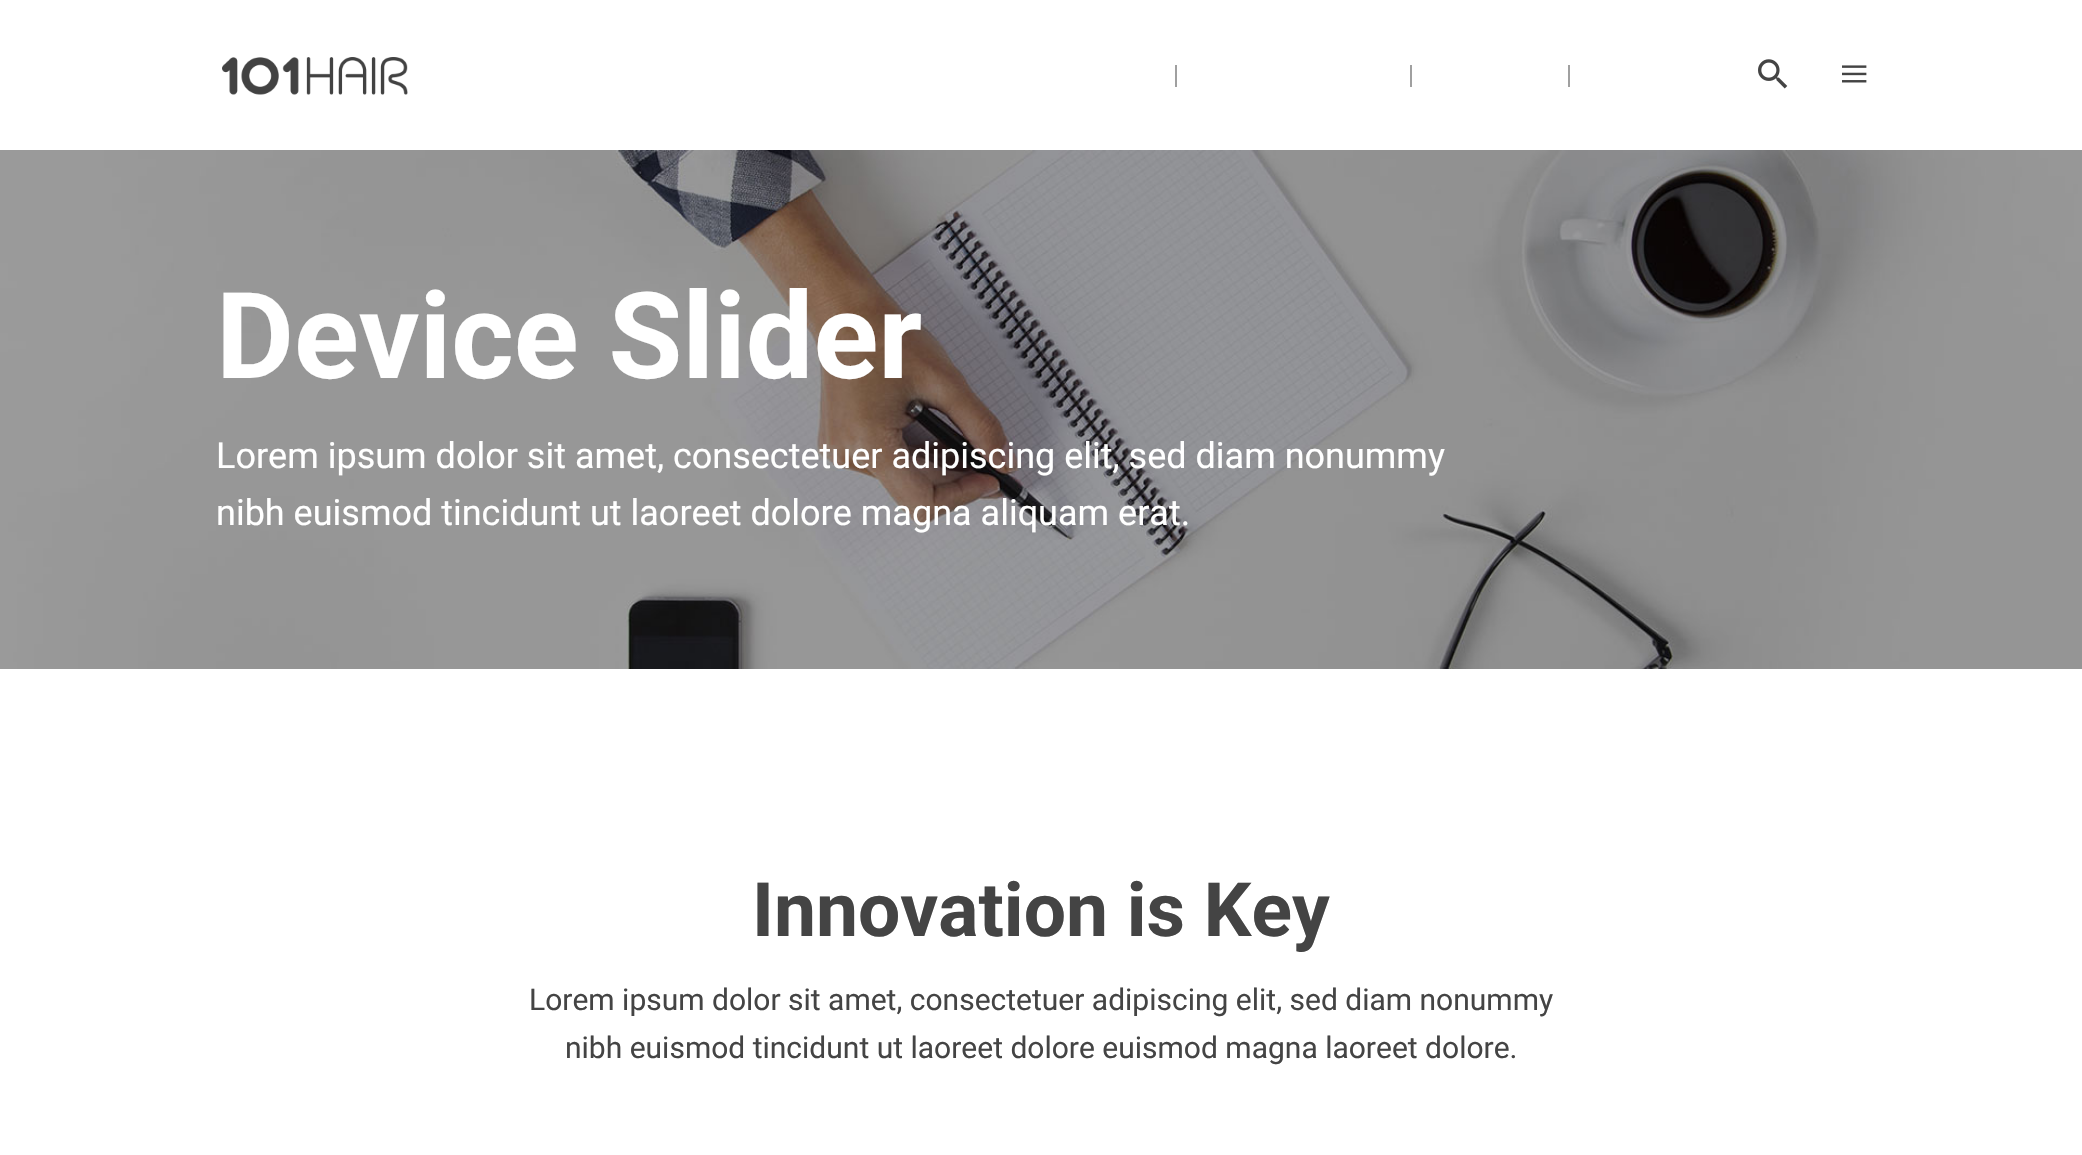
void draw(SkCanvas* canvas) {
    SkPaint paint;
    paint.setAntiAlias(true);
    auto face = [&](const char* family, int weight, float size, bool italic = false) {
        SkFontStyle style(weight, SkFontStyle::kNormal_Width,
            italic ? SkFontStyle::kItalic_Slant : SkFontStyle::kUpright_Slant);
        SkFont result(fontMgr->matchFamilyStyle(family, style), size);
        result.setSubpixel(true);
        return result;
    };
    auto write = [&](const char* s, float x, float y, const SkFont& font, SkColor color) {
        SkPaint ink(SkColor4f::FromColor(color));
        ink.setAntiAlias(true);
        canvas->drawString(s, x, y, font, ink);
    };
    auto block = [&](float x, float y, float w, float h, SkColor color) {
        SkPaint ink(SkColor4f::FromColor(color));
        ink.setAntiAlias(true);
        canvas->drawRect(SkRect::MakeXYWH(x, y, w, h), ink);
    };
    auto paste = [&](const char* path, float x, float y, float w, float h) {
        auto image = SkImages::DeferredFromEncodedData(SkData::MakeFromFileName(path));
        canvas->drawImageRect(image, SkRect::MakeXYWH(x, y, w, h), SkSamplingOptions());
    };
    canvas->clear(SK_ColorWHITE);
    paste("pic1.png", 222, 57, 186, 38);
    block(1175, 65, 2, 22, SkColorSetRGB(160, 160, 160));
    block(1410, 65, 2, 22, SkColorSetRGB(160, 160, 160));
    block(1568, 65, 2, 22, SkColorSetRGB(160, 160, 160));
    paste("pic2.png", 1758, 59, 30, 30);
    paste("pic3.png", 1842, 65, 25, 18);
    paste("pic4.png", 0, 150, 2082, 519);
    auto kFont1 = face("Roboto", 700, 120);
    write("Device Slider", 216, 378, kFont1, SK_ColorWHITE);
    auto kFont2 = face("Roboto", 400, 36);
    write("Lorem ipsum dolor sit amet, consectetuer adipiscing elit, sed diam nonummy", 216, 468, kFont2, SK_ColorWHITE);
    write("nibh euismod tincidunt ut laoreet dolore magna aliquam erat.", 216, 525, kFont2, SK_ColorWHITE);
    auto kFont3 = face("Roboto", 700, 75);
    write("Innovation is Key", 752, 936, kFont3, SkColorSetRGB(68, 68, 68));
    auto kFont4 = face("Roboto", 400, 30);
    write("Lorem ipsum dolor sit amet, consectetuer adipiscing elit, sed diam nonummy", 529, 1010, kFont4, SkColorSetRGB(68, 68, 68));
    write("nibh euismod tincidunt ut laoreet dolore euismod magna laoreet dolore.", 565, 1058, kFont4, SkColorSetRGB(68, 68, 68));
}
